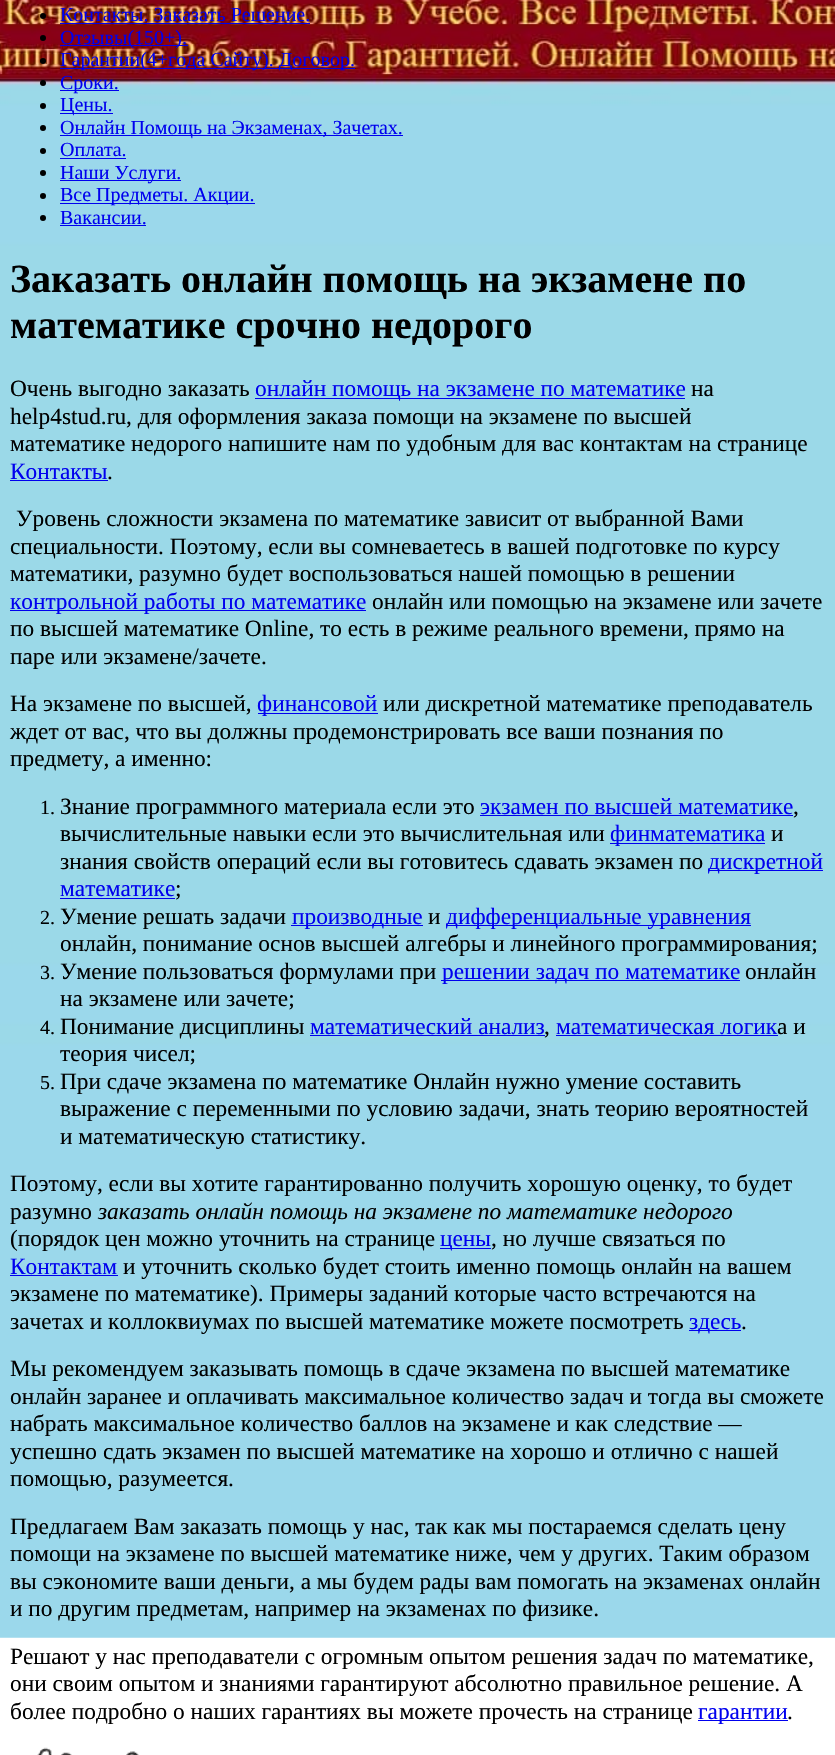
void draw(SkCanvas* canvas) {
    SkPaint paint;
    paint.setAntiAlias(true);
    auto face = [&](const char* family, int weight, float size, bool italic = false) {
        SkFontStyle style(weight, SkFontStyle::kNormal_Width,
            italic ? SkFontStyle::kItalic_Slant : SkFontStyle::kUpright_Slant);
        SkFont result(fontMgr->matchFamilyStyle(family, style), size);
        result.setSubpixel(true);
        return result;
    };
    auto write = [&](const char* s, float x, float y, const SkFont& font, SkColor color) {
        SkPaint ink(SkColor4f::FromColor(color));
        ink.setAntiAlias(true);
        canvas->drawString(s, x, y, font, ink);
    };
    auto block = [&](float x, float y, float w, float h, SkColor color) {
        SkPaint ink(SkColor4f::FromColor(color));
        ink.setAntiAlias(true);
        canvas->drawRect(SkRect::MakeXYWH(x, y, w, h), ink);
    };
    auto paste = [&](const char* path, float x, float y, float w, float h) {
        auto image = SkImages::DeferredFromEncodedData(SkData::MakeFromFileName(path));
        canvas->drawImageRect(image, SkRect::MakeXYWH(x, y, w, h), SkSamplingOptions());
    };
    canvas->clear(SK_ColorWHITE);
    paste("pic1.png", 0, 0, 835, 1638);
    paint.setColor(SK_ColorBLACK);
    canvas->drawCircle(43, 16, 3, paint);
    auto kFont1 = face("Liberation Serif", 400, 20);
    write("Контакты. Заказать Решение.", 60, 21, kFont1, SkColorSetRGB(0, 0, 238));
    block(60, 23, 250, 1, SkColorSetRGB(0, 0, 238));
    canvas->drawCircle(43, 38, 3, paint);
    block(60, 45, 128, 1, SkColorSetRGB(0, 0, 238));
    write("Отзывы(150+).", 60, 44, kFont1, SkColorSetRGB(0, 0, 238));
    canvas->drawCircle(43, 61, 3, paint);
    block(60, 68, 295, 1, SkColorSetRGB(0, 0, 238));
    write("Гарантии(4+года Сайту). Договор.", 60, 66, kFont1, SkColorSetRGB(0, 0, 238));
    canvas->drawCircle(43, 83, 3, paint);
    block(60, 90, 59, 1, SkColorSetRGB(0, 0, 238));
    write("Сроки.", 60, 89, kFont1, SkColorSetRGB(0, 0, 238));
    canvas->drawCircle(43, 106, 3, paint);
    block(60, 113, 53, 1, SkColorSetRGB(0, 0, 238));
    write("Цены.", 60, 111, kFont1, SkColorSetRGB(0, 0, 238));
    canvas->drawCircle(43, 128, 3, paint);
    block(60, 135, 343, 1, SkColorSetRGB(0, 0, 238));
    write("Онлайн Помощь на Экзаменах, Зачетах.", 60, 134, kFont1, SkColorSetRGB(0, 0, 238));
    canvas->drawCircle(43, 151, 3, paint);
    write("Оплата.", 60, 156, kFont1, SkColorSetRGB(0, 0, 238));
    block(60, 158, 66, 1, SkColorSetRGB(0, 0, 238));
    canvas->drawCircle(43, 173, 3, paint);
    block(60, 180, 121, 1, SkColorSetRGB(0, 0, 238));
    write("Наши Услуги.", 60, 179, kFont1, SkColorSetRGB(0, 0, 238));
    canvas->drawCircle(43, 196, 3, paint);
    block(60, 203, 195, 1, SkColorSetRGB(0, 0, 238));
    write("Все Предметы. Акции.", 60, 201, kFont1, SkColorSetRGB(0, 0, 238));
    canvas->drawCircle(43, 218, 3, paint);
    write("Вакансии.", 60, 224, kFont1, SkColorSetRGB(0, 0, 238));
    block(60, 225, 86, 1, SkColorSetRGB(0, 0, 238));
    auto kFont2 = face("Liberation Serif", 700, 40);
    write("Заказать онлайн помощь на экзамене по", 10, 292, kFont2, SK_ColorBLACK);
    write("математике срочно недорого", 10, 338, kFont2, SK_ColorBLACK);
    auto kFont3 = face("Liberation Serif", 400, 23.35f);
    write("Очень выгодно заказать", 10, 396, kFont3, SK_ColorBLACK);
    block(255, 398, 430, 1, SkColorSetRGB(0, 0, 238));
    write("онлайн помощь на экзамене по математике", 255, 396, kFont3, SkColorSetRGB(0, 0, 238));
    write("на", 691, 396, kFont3, SK_ColorBLACK);
    write("help4stud.ru, для оформления заказа помощи на экзамене по высшей", 10, 424, kFont3, SK_ColorBLACK);
    write("математике недорого напишите нам по удобным для вас контактам на странице", 10, 451, kFont3, SK_ColorBLACK);
    write("Контакты", 10, 479, kFont3, SkColorSetRGB(0, 0, 238));
    write(".", 107, 479, kFont3, SK_ColorBLACK);
    block(10, 480, 98, 1, SkColorSetRGB(0, 0, 238));
    write("Уровень сложности экзамена по математике зависит от выбранной Вами", 16, 526, kFont3, SK_ColorBLACK);
    write("специальности. Поэтому, если вы сомневаетесь в вашей подготовке по курсу", 10, 554, kFont3, SK_ColorBLACK);
    write("математики, разумно будет воспользоваться нашей помощью в решении", 10, 581, kFont3, SK_ColorBLACK);
    block(10, 610, 356, 1, SkColorSetRGB(0, 0, 238));
    write("контрольной работы по математике", 10, 609, kFont3, SkColorSetRGB(0, 0, 238));
    write("онлайн или помощью на экзамене или зачете", 372, 609, kFont3, SK_ColorBLACK);
    write("по высшей математике Online, то есть в режиме реального времени, прямо на", 10, 636, kFont3, SK_ColorBLACK);
    write("паре или экзамене/зачете.", 10, 664, kFont3, SK_ColorBLACK);
    write("На экзамене по высшей,", 10, 711, kFont3, SK_ColorBLACK);
    block(258, 713, 120, 1, SkColorSetRGB(0, 0, 238));
    write("финансовой", 257, 711, kFont3, SkColorSetRGB(0, 0, 238));
    write("или дискретной математике преподаватель", 383, 711, kFont3, SK_ColorBLACK);
    write("ждет от вас, что вы должны продемонстрировать все ваши познания по", 10, 739, kFont3, SK_ColorBLACK);
    write("предмету, а именно:", 10, 766, kFont3, SK_ColorBLACK);
    write("1.", 40, 814, kFont1, SK_ColorBLACK);
    write("Знание программного материала если это", 60, 814, kFont3, SK_ColorBLACK);
    write("экзамен по высшей математике", 480, 814, kFont3, SkColorSetRGB(0, 0, 238));
    write(",", 793, 814, kFont3, SK_ColorBLACK);
    block(480, 815, 313, 1, SkColorSetRGB(0, 0, 238));
    write("вычислительные навыки если это вычислительная или", 60, 841, kFont3, SK_ColorBLACK);
    block(610, 843, 155, 1, SkColorSetRGB(0, 0, 238));
    write("финматематика", 610, 841, kFont3, SkColorSetRGB(0, 0, 238));
    write("и", 771, 841, kFont3, SK_ColorBLACK);
    write("знания свойств операций если вы готовитесь сдавать экзамен по", 60, 869, kFont3, SK_ColorBLACK);
    block(709, 870, 114, 1, SkColorSetRGB(0, 0, 238));
    write("дискретной", 708, 869, kFont3, SkColorSetRGB(0, 0, 238));
    write("математике", 60, 896, kFont3, SkColorSetRGB(0, 0, 238));
    write(";", 175, 896, kFont3, SK_ColorBLACK);
    block(60, 898, 115, 1, SkColorSetRGB(0, 0, 238));
    write("2.", 40, 924, kFont1, SK_ColorBLACK);
    write("Умение решать задачи", 60, 924, kFont3, SK_ColorBLACK);
    block(291, 925, 132, 1, SkColorSetRGB(0, 0, 238));
    write("производные", 292, 924, kFont3, SkColorSetRGB(0, 0, 238));
    write("и", 428, 924, kFont3, SK_ColorBLACK);
    block(446, 925, 305, 1, SkColorSetRGB(0, 0, 238));
    write("дифференциальные уравнения", 446, 924, kFont3, SkColorSetRGB(0, 0, 238));
    write("онлайн, понимание основ высшей алгебры и линейного программирования;", 60, 951, kFont3, SK_ColorBLACK);
    write("3.", 40, 979, kFont1, SK_ColorBLACK);
    write("Умение пользоваться формулами при", 60, 979, kFont3, SK_ColorBLACK);
    block(441, 980, 299, 1, SkColorSetRGB(0, 0, 238));
    write("решении задач по математике", 442, 979, kFont3, SkColorSetRGB(0, 0, 238));
    write("онлайн", 745, 979, kFont3, SK_ColorBLACK);
    write("на экзамене или зачете;", 60, 1006, kFont3, SK_ColorBLACK);
    write("4.", 40, 1034, kFont1, SK_ColorBLACK);
    write("Понимание дисциплины", 60, 1034, kFont3, SK_ColorBLACK);
    write("математический анализ", 310, 1034, kFont3, SkColorSetRGB(0, 0, 238));
    write(",", 544, 1034, kFont3, SK_ColorBLACK);
    block(310, 1035, 235, 1, SkColorSetRGB(0, 0, 238));
    block(556, 1035, 222, 1, SkColorSetRGB(0, 0, 238));
    write("математическая логик", 556, 1034, kFont3, SkColorSetRGB(0, 0, 238));
    write("а и", 777, 1034, kFont3, SK_ColorBLACK);
    write("теория чисел;", 60, 1061, kFont3, SK_ColorBLACK);
    write("5.", 40, 1089, kFont1, SK_ColorBLACK);
    write("При сдаче экзамена по математике Онлайн нужно умение составить", 60, 1089, kFont3, SK_ColorBLACK);
    write("выражение с переменными по условию задачи, знать теорию вероятностей", 60, 1116, kFont3, SK_ColorBLACK);
    write("и математическую статистику.", 60, 1144, kFont3, SK_ColorBLACK);
    write("Поэтому, если вы хотите гарантированно получить хорошую оценку, то будет", 10, 1191, kFont3, SK_ColorBLACK);
    write("разумно", 10, 1219, kFont3, SK_ColorBLACK);
    auto kFont4 = face("Liberation Serif", 400, 23.35f, true);
    write("заказать онлайн помощь на экзамене по математике недорого", 98, 1219, kFont4, SK_ColorBLACK);
    write("(порядок цен можно уточнить на странице", 10, 1246, kFont3, SK_ColorBLACK);
    block(440, 1248, 51, 1, SkColorSetRGB(0, 0, 238));
    write("цены", 440, 1246, kFont3, SkColorSetRGB(0, 0, 238));
    write(", но лучше связаться по", 491, 1246, kFont3, SK_ColorBLACK);
    write("Контактам", 10, 1274, kFont3, SkColorSetRGB(0, 0, 238));
    block(10, 1275, 108, 1, SkColorSetRGB(0, 0, 238));
    write("и уточнить сколько будет стоить именно помощь онлайн на вашем", 123, 1274, kFont3, SK_ColorBLACK);
    write("экзамене по математике). Примеры заданий которые часто встречаются на", 10, 1301, kFont3, SK_ColorBLACK);
    write("зачетах и коллоквиумах по высшей математике можете посмотреть", 10, 1329, kFont3, SK_ColorBLACK);
    block(689, 1330, 52, 1, SkColorSetRGB(0, 0, 238));
    write("здесь", 689, 1329, kFont3, SkColorSetRGB(0, 0, 238));
    write(".", 741, 1329, kFont3, SK_ColorBLACK);
    write("Мы рекомендуем заказывать помощь в сдаче экзамена по высшей математике", 10, 1376, kFont3, SK_ColorBLACK);
    write("онлайн заранее и оплачивать максимальное количество задач и тогда вы сможете", 10, 1404, kFont3, SK_ColorBLACK);
    write("набрать максимальное количество баллов на экзамене и как следствие —", 10, 1431, kFont3, SK_ColorBLACK);
    write("успешно сдать экзамен по высшей математике на хорошо и отлично с нашей", 10, 1459, kFont3, SK_ColorBLACK);
    write("помощью, разумеется.", 10, 1486, kFont3, SK_ColorBLACK);
    write("Предлагаем Вам заказать помощь у нас, так как мы постараемся сделать цену", 10, 1534, kFont3, SK_ColorBLACK);
    write("помощи на экзамене по высшей математике ниже, чем у других. Таким образом", 10, 1561, kFont3, SK_ColorBLACK);
    write("вы сэкономите ваши деньги, а мы будем рады вам помогать на экзаменах онлайн", 10, 1589, kFont3, SK_ColorBLACK);
    write("и по другим предметам, например на экзаменах по физике.", 10, 1616, kFont3, SK_ColorBLACK);
    write("Решают у нас преподаватели с огромным опытом решения задач по математике,", 10, 1664, kFont3, SK_ColorBLACK);
    write("они своим опытом и знаниями гарантируют абсолютно правильное решение. А", 10, 1691, kFont3, SK_ColorBLACK);
    write("более подробно о наших гарантиях вы можете прочесть на странице", 10, 1719, kFont3, SK_ColorBLACK);
    block(698, 1720, 90, 1, SkColorSetRGB(0, 0, 238));
    write("гарантии", 698, 1719, kFont3, SkColorSetRGB(0, 0, 238));
    write(".", 787, 1719, kFont3, SK_ColorBLACK);
    paste("pic2.png", 37, 1747, 102, 8);
}
